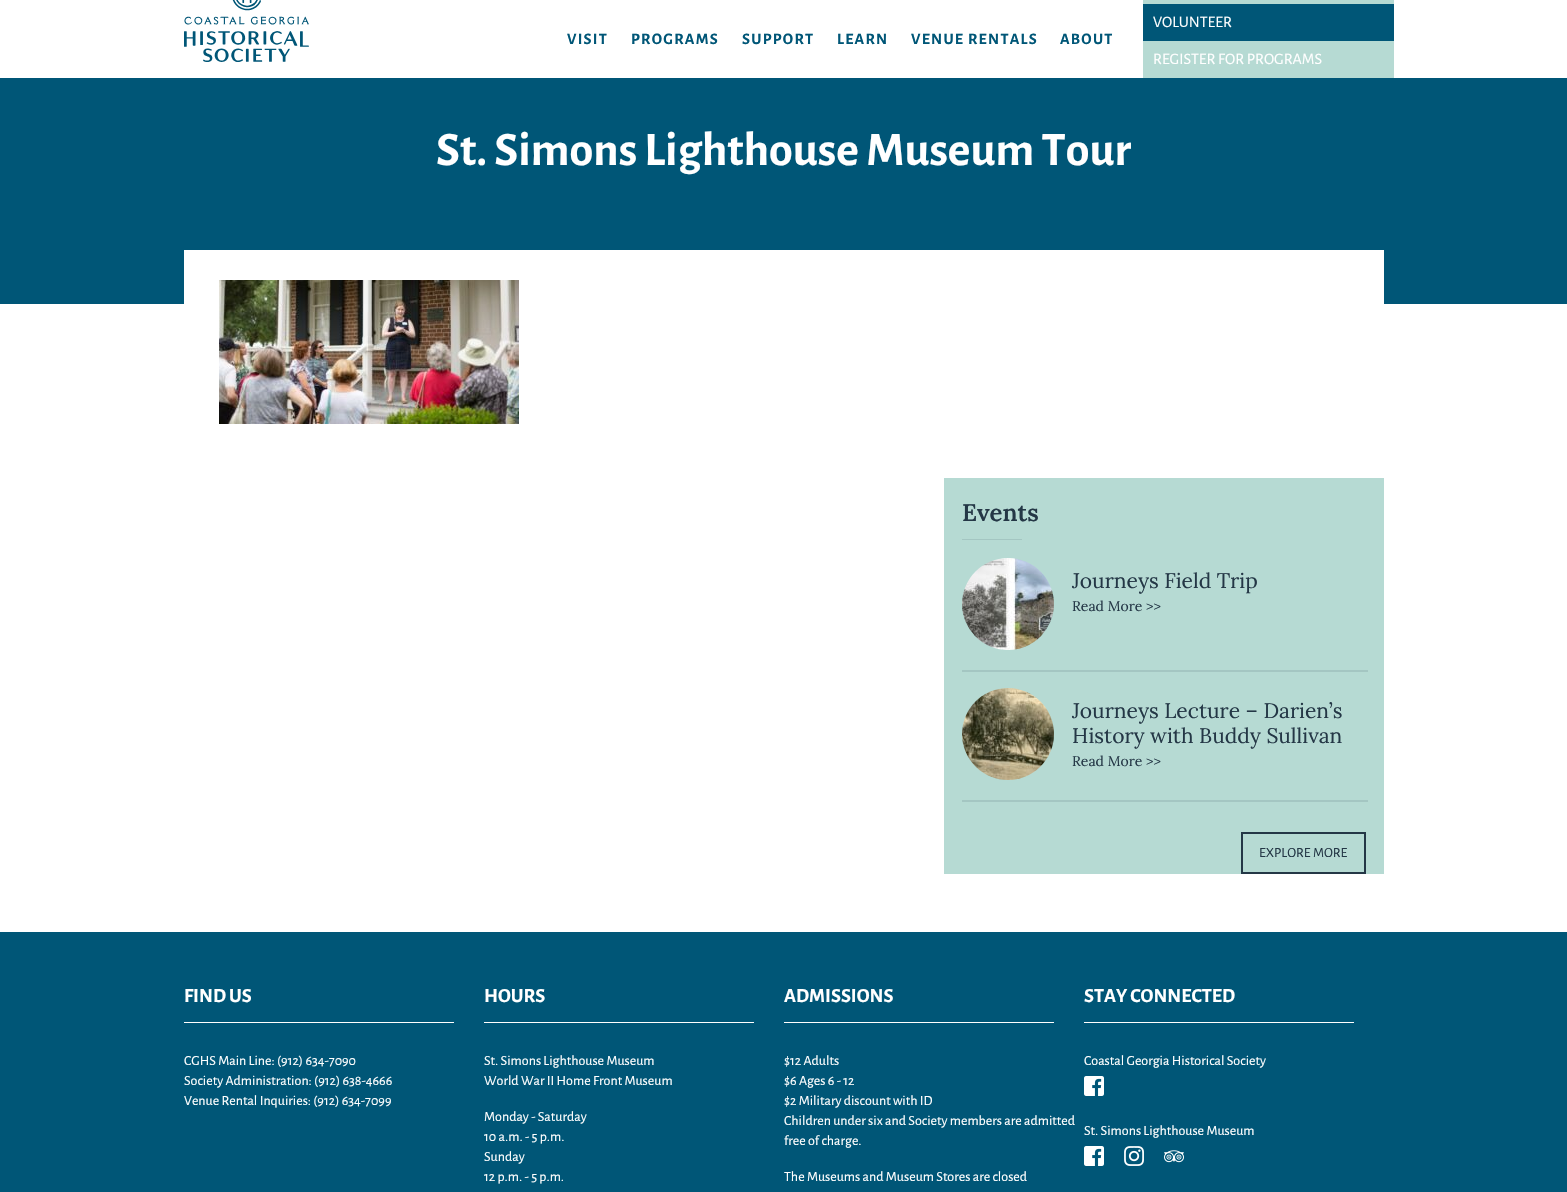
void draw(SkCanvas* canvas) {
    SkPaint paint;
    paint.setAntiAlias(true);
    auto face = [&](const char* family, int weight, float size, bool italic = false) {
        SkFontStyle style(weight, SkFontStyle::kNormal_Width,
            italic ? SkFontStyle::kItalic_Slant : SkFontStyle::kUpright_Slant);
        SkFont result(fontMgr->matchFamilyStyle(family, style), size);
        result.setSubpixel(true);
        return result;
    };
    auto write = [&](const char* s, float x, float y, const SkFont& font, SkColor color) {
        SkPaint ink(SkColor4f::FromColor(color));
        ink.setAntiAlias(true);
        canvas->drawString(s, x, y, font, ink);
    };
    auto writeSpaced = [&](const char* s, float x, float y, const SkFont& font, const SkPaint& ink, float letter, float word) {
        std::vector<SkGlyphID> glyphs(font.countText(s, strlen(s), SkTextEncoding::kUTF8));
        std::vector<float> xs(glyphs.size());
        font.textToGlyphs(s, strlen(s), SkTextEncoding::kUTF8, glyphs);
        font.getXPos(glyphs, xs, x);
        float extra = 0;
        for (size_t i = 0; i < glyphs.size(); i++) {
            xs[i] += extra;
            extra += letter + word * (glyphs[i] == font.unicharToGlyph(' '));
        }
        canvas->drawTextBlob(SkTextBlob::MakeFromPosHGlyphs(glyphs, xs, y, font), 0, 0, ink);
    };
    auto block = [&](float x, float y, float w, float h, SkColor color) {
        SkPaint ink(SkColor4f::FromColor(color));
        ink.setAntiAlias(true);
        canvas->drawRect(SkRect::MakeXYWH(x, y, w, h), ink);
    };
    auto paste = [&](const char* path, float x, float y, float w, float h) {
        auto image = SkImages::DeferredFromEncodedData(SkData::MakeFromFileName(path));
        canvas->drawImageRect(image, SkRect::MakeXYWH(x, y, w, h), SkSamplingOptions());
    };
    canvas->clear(SK_ColorWHITE);
    paste("pic1.png", 184, 0, 125, 62);
    auto kFont1 = face("Alegreya Sans", 700, 16);
    paint.setColor(SkColorSetRGB(0, 86, 119));
    writeSpaced("VISIT", 567, 44, kFont1, paint, 1.25f, 0);
    writeSpaced("PROGRAMS", 631, 44, kFont1, paint, 1.25f, 0);
    writeSpaced("SUPPORT", 742, 44, kFont1, paint, 1.25f, 0);
    writeSpaced("LEARN", 837, 44, kFont1, paint, 1.25f, 0);
    writeSpaced("VENUE RENTALS", 911, 44, kFont1, paint, 1.25f, 0);
    writeSpaced("ABOUT", 1060, 44, kFont1, paint, 1.25f, 0);
    block(1143, 0, 251, 4, SkColorSetRGB(182, 218, 211));
    block(1143, 4, 251, 37, SkColorSetRGB(0, 86, 119));
    auto kFont2 = face("Alegreya Sans", 400, 16);
    write("VOLUNTEER", 1153, 27, kFont2, SK_ColorWHITE);
    block(1143, 41, 251, 37, SkColorSetRGB(182, 218, 211));
    write("REGISTER FOR PROGRAMS", 1153, 64, kFont2, SK_ColorWHITE);
    block(0, 78, 1567, 226, SkColorSetRGB(0, 86, 119));
    auto kFont3 = face("Alegreya Sans", 700, 48);
    write("St. Simons Lighthouse Museum Tour", 436, 165, kFont3, SK_ColorWHITE);
    block(184, 250, 1200, 54, SK_ColorWHITE);
    paste("pic2.png", 219, 280, 300, 144);
    block(944, 478, 440, 396, SkColorSetRGB(182, 218, 211));
    auto kFont4 = face("Lora", 600, 24);
    write("Events", 962, 521, kFont4, SkColorSetRGB(36, 55, 70));
    block(962, 539, 60, 1, SkColorSetRGB(164, 198, 194));
    block(962, 670, 406, 2, SkColorSetRGB(164, 198, 194));
    paste("pic3.png", 962, 558, 92, 92);
    auto kFont5 = face("Lora", 400, 21);
    write("Journeys Field Trip", 1072, 588, kFont5, SkColorSetRGB(36, 55, 70));
    auto kFont6 = face("Lora", 400, 14);
    write("Read More >>", 1072, 611, kFont6, SkColorSetRGB(36, 55, 70));
    block(962, 800, 406, 2, SkColorSetRGB(164, 198, 194));
    paste("pic4.png", 962, 688, 92, 92);
    write("Journeys Lecture – Darien’s", 1072, 718, kFont5, SkColorSetRGB(36, 55, 70));
    write("History with Buddy Sullivan", 1072, 743, kFont5, SkColorSetRGB(36, 55, 70));
    write("Read More >>", 1072, 766, kFont6, SkColorSetRGB(36, 55, 70));
    paint.setStyle(SkPaint::kStroke_Style);
    paint.setStrokeWidth(2);
    paint.setColor(SkColorSetRGB(36, 55, 70));
    canvas->drawRect(SkRect::MakeXYWH(1242, 833, 123, 40), paint);
    auto kFont7 = face("Alegreya Sans", 400, 14);
    write("EXPLORE MORE", 1259, 857, kFont7, SkColorSetRGB(36, 55, 70));
    block(0, 932, 1567, 260, SkColorSetRGB(0, 86, 119));
    block(184, 1022, 270, 1, SK_ColorWHITE);
    auto kFont8 = face("Alegreya Sans", 700, 20);
    write("FIND US", 184, 1002, kFont8, SK_ColorWHITE);
    write("CGHS Main Line: (912) 634-7090", 184, 1065, kFont7, SK_ColorWHITE);
    write("Society Administration: (912) 638-4666", 184, 1085, kFont7, SK_ColorWHITE);
    write("Venue Rental Inquiries: (912) 634-7099", 184, 1105, kFont7, SK_ColorWHITE);
    block(484, 1022, 270, 1, SK_ColorWHITE);
    write("HOURS", 484, 1002, kFont8, SK_ColorWHITE);
    write("St. Simons Lighthouse Museum", 484, 1065, kFont7, SK_ColorWHITE);
    write("World War II Home Front Museum", 484, 1085, kFont7, SK_ColorWHITE);
    write("Monday - Saturday", 484, 1121, kFont7, SK_ColorWHITE);
    write("10 a.m. - 5 p.m.", 484, 1141, kFont7, SK_ColorWHITE);
    write("Sunday", 484, 1161, kFont7, SK_ColorWHITE);
    write("12 p.m. - 5 p.m.", 484, 1181, kFont7, SK_ColorWHITE);
    block(784, 1022, 270, 1, SK_ColorWHITE);
    write("ADMISSIONS", 784, 1002, kFont8, SK_ColorWHITE);
    write("$12 Adults", 784, 1065, kFont7, SK_ColorWHITE);
    write("$6 Ages 6 - 12", 784, 1085, kFont7, SK_ColorWHITE);
    write("$2 Military discount with ID", 784, 1105, kFont7, SK_ColorWHITE);
    write("Children under six and Society members are admitted", 784, 1125, kFont7, SK_ColorWHITE);
    write("free of charge.", 784, 1145, kFont7, SK_ColorWHITE);
    write("The Museums and Museum Stores are closed", 784, 1181, kFont7, SK_ColorWHITE);
    block(1084, 1022, 270, 1, SK_ColorWHITE);
    write("STAY CONNECTED", 1084, 1002, kFont8, SK_ColorWHITE);
    write("Coastal Georgia Historical Society", 1084, 1065, kFont7, SK_ColorWHITE);
    paste("pic5.png", 1084, 1076, 20, 20);
    write("St. Simons Lighthouse Museum", 1084, 1135, kFont7, SK_ColorWHITE);
    paste("pic5.png", 1084, 1146, 20, 20);
    paste("pic6.png", 1124, 1146, 20, 20);
    paste("pic7.png", 1164, 1150, 20, 13);
}
